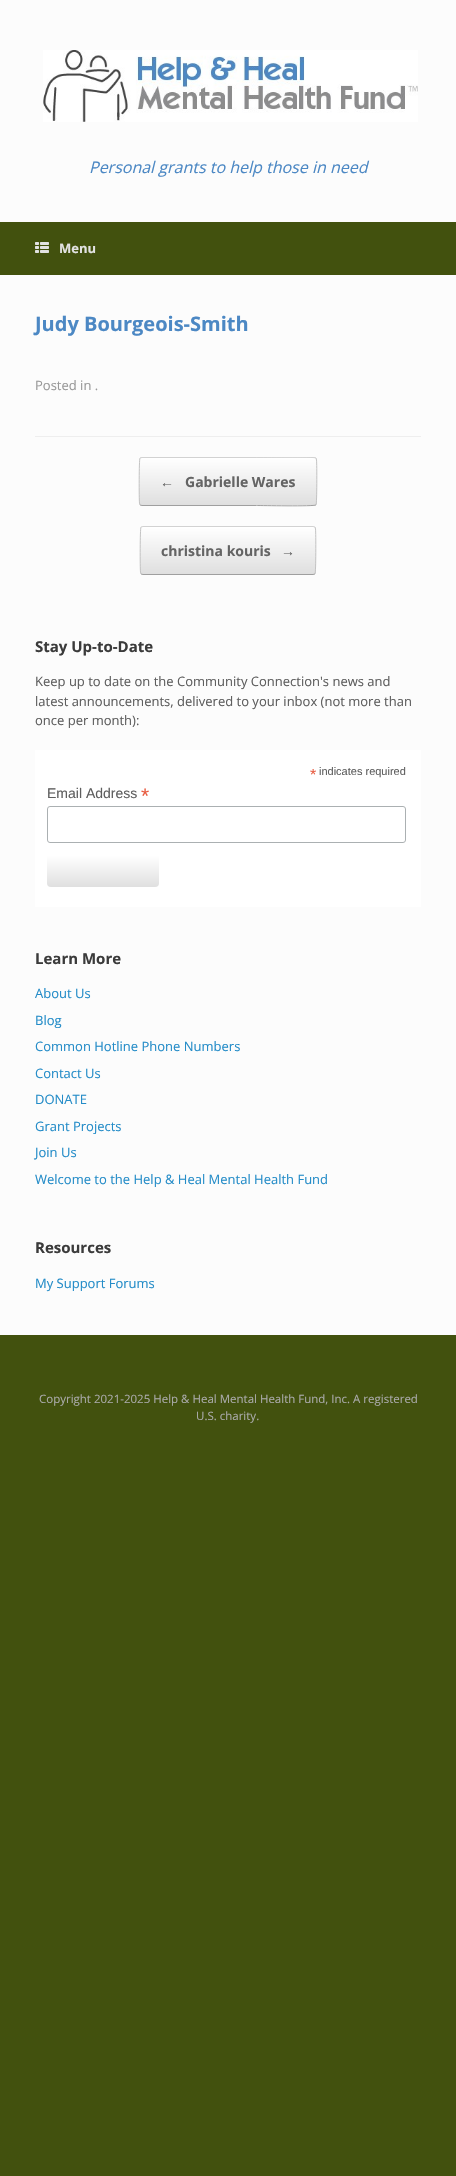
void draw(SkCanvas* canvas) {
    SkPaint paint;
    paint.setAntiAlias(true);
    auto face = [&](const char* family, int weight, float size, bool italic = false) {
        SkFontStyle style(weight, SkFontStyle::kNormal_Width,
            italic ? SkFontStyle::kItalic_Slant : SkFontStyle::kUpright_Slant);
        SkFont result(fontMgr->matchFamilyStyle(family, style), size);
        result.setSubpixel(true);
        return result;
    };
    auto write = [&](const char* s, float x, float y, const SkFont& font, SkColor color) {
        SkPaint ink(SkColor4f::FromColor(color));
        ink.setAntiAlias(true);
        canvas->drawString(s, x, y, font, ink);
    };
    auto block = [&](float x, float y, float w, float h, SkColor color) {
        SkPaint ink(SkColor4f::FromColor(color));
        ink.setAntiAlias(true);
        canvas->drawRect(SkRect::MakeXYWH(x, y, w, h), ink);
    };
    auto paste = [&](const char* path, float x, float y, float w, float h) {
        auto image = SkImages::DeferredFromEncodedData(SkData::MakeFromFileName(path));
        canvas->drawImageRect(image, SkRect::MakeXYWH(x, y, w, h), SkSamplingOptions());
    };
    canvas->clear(SkColorSetRGB(66, 81, 14));
    block(0, 0, 456, 222, SkColorSetRGB(252, 252, 252));
    paste("pic1.png", 43, 50, 375, 72);
    auto kFont1 = face("Open Sans", 400, 16, true);
    write("Personal grants to help those in need", 89, 173, kFont1, SkColorSetRGB(76, 136, 196));
    paste("pic2.png", 35, 242, 14, 11);
    auto kFont2 = face("Open Sans", 700, 13);
    write("Menu", 59, 253, kFont2, SkColorSetRGB(226, 226, 226));
    block(0, 275, 456, 1060, SkColorSetRGB(252, 252, 252));
    block(35, 436, 386, 1, SkColorSetRGB(238, 238, 238));
    auto kFont3 = face("Open Sans", 700, 20);
    write("Judy Bourgeois-Smith", 35, 331, kFont3, SkColorSetRGB(76, 136, 196));
    auto kFont4 = face("Open Sans", 400, 13);
    write("Posted in .", 35, 390, kFont4, SkColorSetRGB(153, 153, 153));
    canvas->save();
    canvas->clipPath(SkPathBuilder().moveTo(142, 457).lineTo(314, 457).cubicTo(315.5f, 457, 317, 458.5f, 317, 460).lineTo(317, 503).cubicTo(317, 504.5f, 315.5f, 506, 314, 506).lineTo(142, 506).cubicTo(140.5f, 506, 139, 504.5f, 139, 503).lineTo(139, 460).cubicTo(139, 458.5f, 140.5f, 457, 142, 457).close().detach(), true);
    {
        const SkColor colors[] = {SkColorSetRGB(223, 223, 223), SK_ColorWHITE};
        const float stops[] = {0, 1};
        const SkPoint ends[] = {{140, 458}, {140, 411}};
        paint.setShader(SkGradientShader::MakeLinear(ends, colors, stops, 2, SkTileMode::kClamp));
        paint.setAlpha(255);
    }
    canvas->drawRect(SkRect::MakeXYWH(139, 457, 178, 1), paint);
    {
        const SkColor colors[] = {SkColorSetRGB(223, 223, 223), SK_ColorWHITE};
        const float stops[] = {0, 1};
        const SkPoint ends[] = {{140, 505}, {140, 458}};
        paint.setShader(SkGradientShader::MakeLinear(ends, colors, stops, 2, SkTileMode::kClamp));
        paint.setAlpha(255);
    }
    canvas->drawRect(SkRect::MakeXYWH(139, 458, 178, 47), paint);
    {
        const SkColor colors[] = {SkColorSetRGB(223, 223, 223), SK_ColorWHITE};
        const float stops[] = {0, 1};
        const SkPoint ends[] = {{140, 552}, {140, 505}};
        paint.setShader(SkGradientShader::MakeLinear(ends, colors, stops, 2, SkTileMode::kClamp));
        paint.setAlpha(255);
    }
    canvas->drawRect(SkRect::MakeXYWH(139, 505, 178, 1), paint);
    canvas->restore();
    canvas->save();
    canvas->clipRect(SkRect::MakeXYWH(35, 457, 386, 138));
    paint.setStyle(SkPaint::kStroke_Style);
    paint.setStrokeWidth(1);
    paint.setShader(nullptr);
    paint.setColor(SkColorSetRGB(210, 210, 210));
    canvas->drawPath(SkPathBuilder().moveTo(140, 458).lineTo(142, 457.5f).lineTo(256.5f, 457.5f).cubicTo(260.5f, 457.5f, 314, 456.5f, 316, 458).detach(), paint);
    canvas->restore();
    paint.setColor(SkColorSetRGB(195, 195, 195));
    canvas->drawPath(SkPathBuilder().moveTo(316, 458).lineTo(316.5f, 460).cubicTo(317, 464, 317, 503.5f, 316, 505).detach(), paint);
    paint.setColor(SkColorSetRGB(159, 159, 159));
    canvas->drawPath(SkPathBuilder().moveTo(316, 505).cubicTo(314, 506.5f, 260.5f, 505.5f, 256.5f, 505.5f).lineTo(142, 505.5f).lineTo(140, 505).detach(), paint);
    paint.setColor(SkColorSetRGB(195, 195, 195));
    canvas->drawPath(SkPathBuilder().moveTo(140, 505).lineTo(139.5f, 503).cubicTo(139, 499, 139, 459.5f, 140, 458).detach(), paint);
    auto kFont5 = face("Liberation Serif", 700, 14);
    write("←", 160, 487, kFont5, SkColorSetRGB(100, 100, 100));
    auto kFont6 = face("Open Sans", 700, 14);
    write("Gabrielle Wares", 185, 487, kFont6, SkColorSetRGB(100, 100, 100));
    canvas->save();
    canvas->clipPath(SkPathBuilder().moveTo(143, 526).lineTo(313, 526).cubicTo(314.5f, 526, 316, 527.5f, 316, 529).lineTo(316, 572).cubicTo(316, 573.5f, 314.5f, 575, 313, 575).lineTo(143, 575).cubicTo(141.5f, 575, 140, 573.5f, 140, 572).lineTo(140, 529).cubicTo(140, 527.5f, 141.5f, 526, 143, 526).close().detach(), true);
    paint.setStyle(SkPaint::kFill_Style);
    {
        const SkColor colors[] = {SkColorSetRGB(223, 223, 223), SK_ColorWHITE};
        const float stops[] = {0, 1};
        const SkPoint ends[] = {{141, 574}, {141, 527}};
        paint.setShader(SkGradientShader::MakeLinear(ends, colors, stops, 2, SkTileMode::kClamp));
        paint.setAlpha(255);
    }
    canvas->drawRect(SkRect::MakeXYWH(140, 527, 176, 47), paint);
    canvas->restore();
    paint.setStyle(SkPaint::kStroke_Style);
    paint.setShader(nullptr);
    paint.setColor(SkColorSetRGB(210, 210, 210));
    canvas->drawPath(SkPathBuilder().moveTo(141, 527).lineTo(143, 526.5f).lineTo(313, 526.5f).lineTo(315, 527).detach(), paint);
    paint.setColor(SkColorSetRGB(195, 195, 195));
    canvas->drawPath(SkPathBuilder().moveTo(315, 527).lineTo(315.5f, 529).cubicTo(316, 533, 316, 572.5f, 315, 574).detach(), paint);
    paint.setColor(SkColorSetRGB(159, 159, 159));
    canvas->drawPath(SkPathBuilder().moveTo(315, 574).lineTo(313, 574.5f).lineTo(143, 574.5f).lineTo(141, 574).detach(), paint);
    paint.setColor(SkColorSetRGB(195, 195, 195));
    canvas->drawPath(SkPathBuilder().moveTo(141, 574).lineTo(140.5f, 572).cubicTo(140, 568, 140, 528.5f, 141, 527).detach(), paint);
    write("christina kouris", 161, 556, kFont6, SkColorSetRGB(100, 100, 100));
    write("→", 281, 556, kFont5, SkColorSetRGB(100, 100, 100));
    auto kFont7 = face("Open Sans", 700, 15);
    write("Stay Up-to-Date", 35, 652, kFont7, SkColorSetRGB(59, 59, 59));
    write("Keep up to date on the Community Connection's news and", 35, 686, kFont4, SkColorSetRGB(94, 94, 94));
    write("latest announcements, delivered to your inbox (not more than", 35, 706, kFont4, SkColorSetRGB(94, 94, 94));
    write("once per month):", 35, 725, kFont4, SkColorSetRGB(94, 94, 94));
    block(35, 750, 386, 157, SK_ColorWHITE);
    auto kFont8 = face("Liberation Sans", 400, 16);
    write("*", 310, 780, kFont8, SkColorSetRGB(232, 92, 65));
    auto kFont9 = face("Liberation Sans", 400, 11);
    write("indicates required", 319, 775, kFont9, SkColorSetRGB(94, 94, 94));
    auto kFont10 = face("Liberation Sans", 400, 14);
    write("Email Address", 47, 798, kFont10, SkColorSetRGB(94, 94, 94));
    auto kFont11 = face("Liberation Sans", 400, 21);
    write("*", 141, 803, kFont11, SkColorSetRGB(232, 92, 65));
    paint.setColor(SkColorSetRGB(171, 176, 178));
    canvas->drawRoundRect(SkRect::MakeXYWH(47.5f, 806.5f, 358, 36), 2.5f, 2.5f, paint);
    paint.setStyle(SkPaint::kFill_Style);
    {
        const SkColor colors[] = {SkColorSetRGB(223, 223, 223), SK_ColorWHITE};
        const float stops[] = {0, 1};
        const SkPoint ends[] = {{47, 887}, {47, 855}};
        paint.setShader(SkGradientShader::MakeLinear(ends, colors, stops, 2, SkTileMode::kClamp));
        paint.setAlpha(255);
    }
    canvas->drawRoundRect(SkRect::MakeXYWH(47, 855, 112, 32), 4, 4, paint);
    write("Learn More", 35, 964, kFont7, SkColorSetRGB(59, 59, 59));
    write("About Us", 35, 998, kFont4, SkColorSetRGB(36, 140, 200));
    write("Blog", 35, 1025, kFont4, SkColorSetRGB(36, 140, 200));
    write("Common Hotline Phone Numbers", 35, 1051, kFont4, SkColorSetRGB(36, 140, 200));
    write("Contact Us", 35, 1078, kFont4, SkColorSetRGB(36, 140, 200));
    write("DONATE", 35, 1104, kFont4, SkColorSetRGB(36, 140, 200));
    write("Grant Projects", 35, 1131, kFont4, SkColorSetRGB(36, 140, 200));
    write("Join Us", 35, 1157, kFont4, SkColorSetRGB(36, 140, 200));
    write("Welcome to the Help & Heal Mental Health Fund", 35, 1184, kFont4, SkColorSetRGB(36, 140, 200));
    write("Resources", 35, 1253, kFont7, SkColorSetRGB(59, 59, 59));
    write("My Support Forums", 35, 1288, kFont4, SkColorSetRGB(36, 140, 200));
    auto kFont12 = face("Open Sans", 400, 11.5f);
    write("Copyright 2021-2025 Help & Heal Mental Health Fund, Inc. A registered", 39, 1403, kFont12, SkColorSetRGB(170, 170, 170));
    write("U.S. charity.", 196, 1420, kFont12, SkColorSetRGB(170, 170, 170));
}
